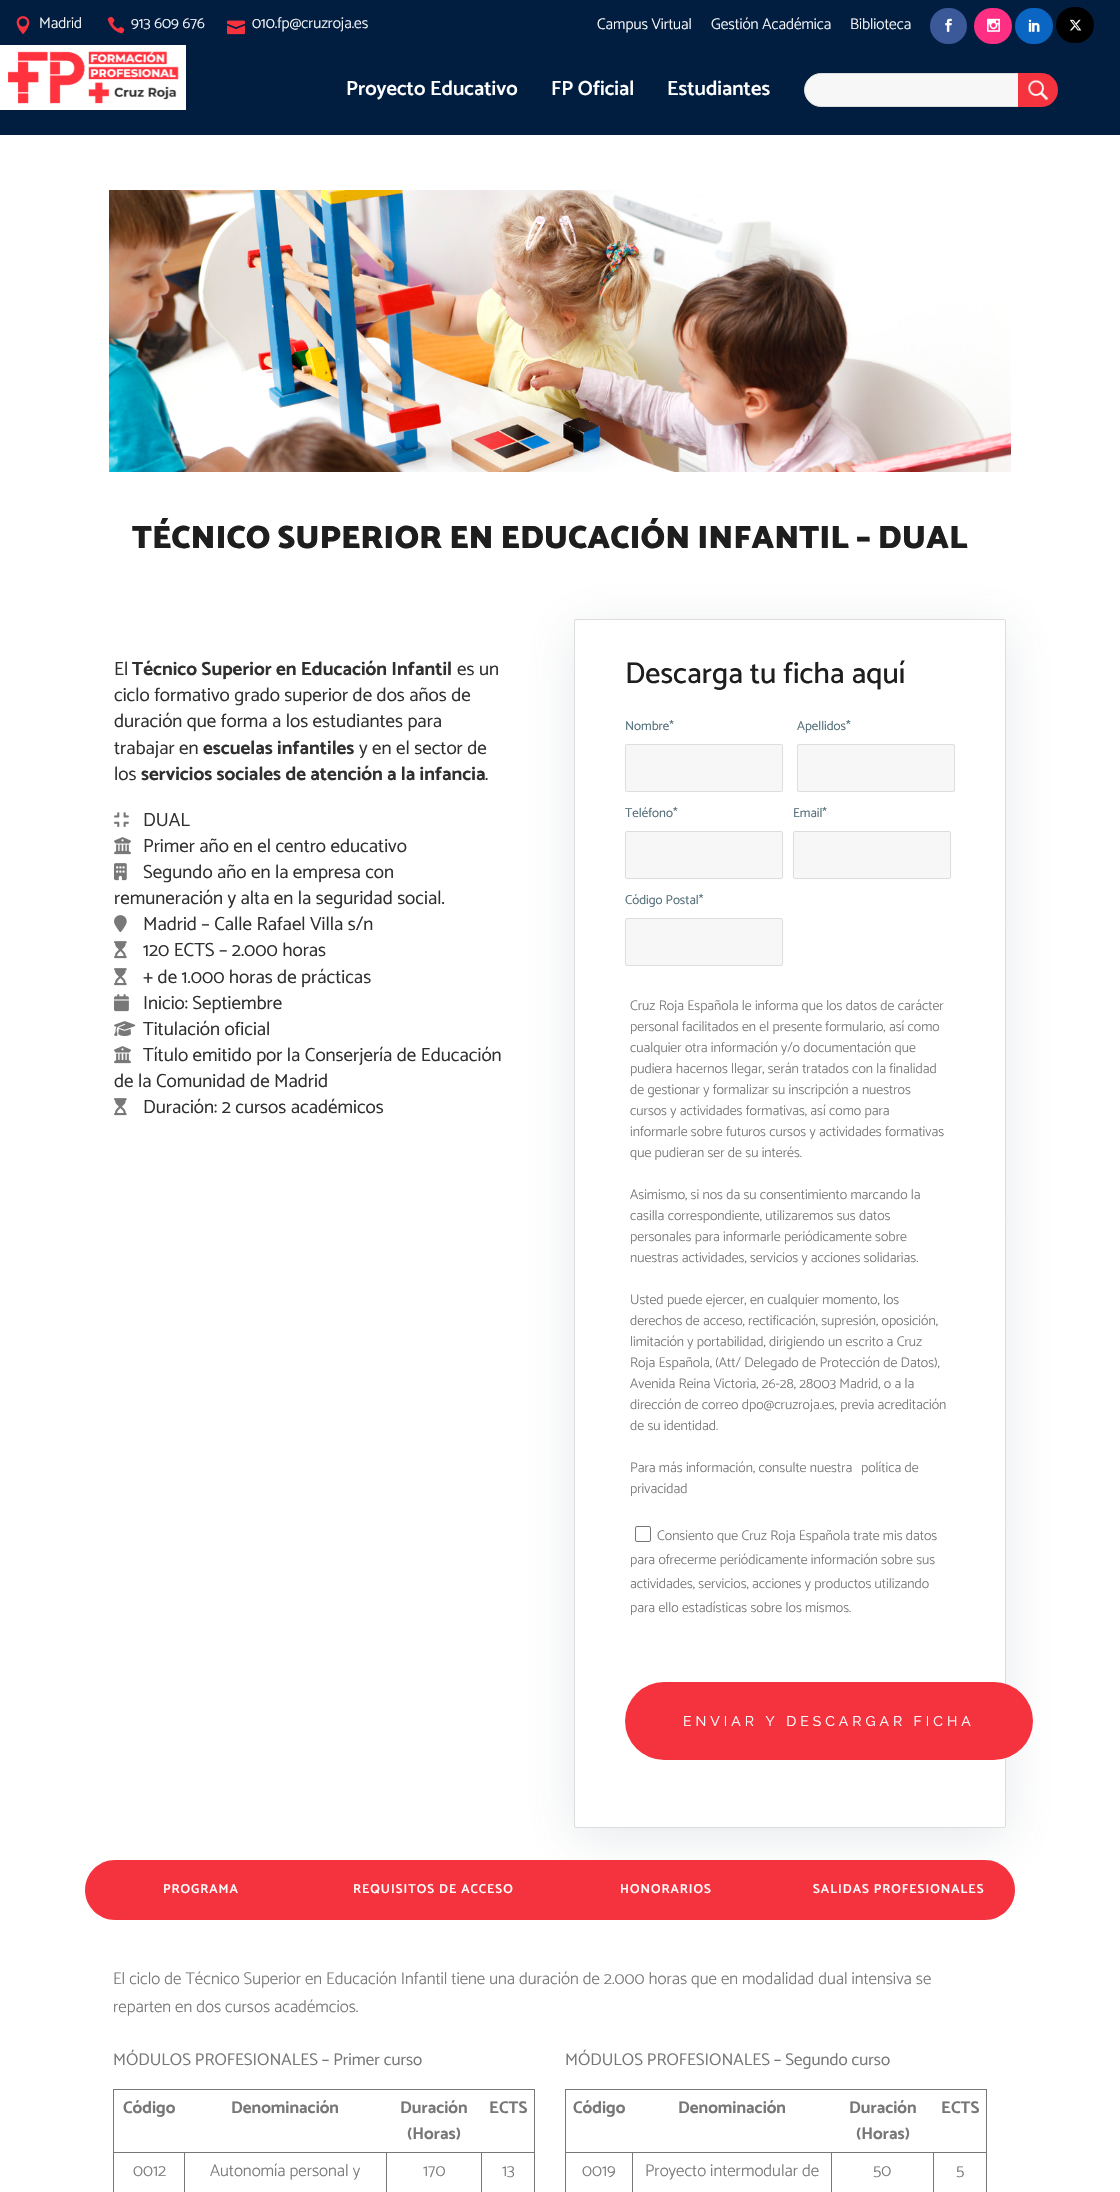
void draw(SkCanvas* canvas) {
    SkPaint paint;
    paint.setAntiAlias(true);
    auto face = [&](const char* family, int weight, float size, bool italic = false) {
        SkFontStyle style(weight, SkFontStyle::kNormal_Width,
            italic ? SkFontStyle::kItalic_Slant : SkFontStyle::kUpright_Slant);
        SkFont result(fontMgr->matchFamilyStyle(family, style), size);
        result.setSubpixel(true);
        return result;
    };
    auto write = [&](const char* s, float x, float y, const SkFont& font, SkColor color) {
        SkPaint ink(SkColor4f::FromColor(color));
        ink.setAntiAlias(true);
        canvas->drawString(s, x, y, font, ink);
    };
    auto writeSpaced = [&](const char* s, float x, float y, const SkFont& font, const SkPaint& ink, float letter, float word) {
        std::vector<SkGlyphID> glyphs(font.countText(s, strlen(s), SkTextEncoding::kUTF8));
        std::vector<float> xs(glyphs.size());
        font.textToGlyphs(s, strlen(s), SkTextEncoding::kUTF8, glyphs);
        font.getXPos(glyphs, xs, x);
        float extra = 0;
        for (size_t i = 0; i < glyphs.size(); i++) {
            xs[i] += extra;
            extra += letter + word * (glyphs[i] == font.unicharToGlyph(' '));
        }
        canvas->drawTextBlob(SkTextBlob::MakeFromPosHGlyphs(glyphs, xs, y, font), 0, 0, ink);
    };
    auto block = [&](float x, float y, float w, float h, SkColor color) {
        SkPaint ink(SkColor4f::FromColor(color));
        ink.setAntiAlias(true);
        canvas->drawRect(SkRect::MakeXYWH(x, y, w, h), ink);
    };
    auto card = [&](float x, float y, float w, float h, float radius, SkColor color) {
        SkPaint ink(SkColor4f::FromColor(color));
        ink.setAntiAlias(true);
        canvas->drawRoundRect(SkRect::MakeXYWH(x, y, w, h), radius, radius, ink);
    };
    auto paste = [&](const char* path, float x, float y, float w, float h) {
        auto image = SkImages::DeferredFromEncodedData(SkData::MakeFromFileName(path));
        canvas->drawImageRect(image, SkRect::MakeXYWH(x, y, w, h), SkSamplingOptions());
    };
    canvas->clear(SK_ColorWHITE);
    block(0, 0, 1120, 135, SkColorSetRGB(1, 30, 65));
    paste("pic1.png", 16, 16, 14, 18);
    auto kFont1 = face("Catamaran", 300, 15.5f);
    write("Madrid", 39, 28, kFont1, SK_ColorWHITE);
    paste("pic2.png", 107, 16, 18, 18);
    write("913 609 676", 131, 28, kFont1, SK_ColorWHITE);
    paste("pic3.png", 227, 20, 18, 15);
    write("010.fp@cruzroja.es", 252, 28, kFont1, SK_ColorWHITE);
    write("Campus Virtual", 597, 29, kFont1, SK_ColorWHITE);
    write("Gestión Académica", 711, 29, kFont1, SK_ColorWHITE);
    write("Biblioteca", 850, 29, kFont1, SK_ColorWHITE);
    card(930, 8, 37, 36, 18, SkColorSetRGB(59, 89, 152));
    paste("pic4.png", 945, 18, 7, 14);
    card(974, 8, 38, 36, 18, SkColorSetRGB(255, 47, 132));
    paste("pic5.png", 987, 18, 13, 14);
    card(1015, 8, 38, 36, 18, SkColorSetRGB(10, 102, 194));
    paste("pic6.png", 1028, 19, 12, 13);
    card(1056, 7, 38, 36, 18, SK_ColorBLACK);
    paste("pic7.png", 1069, 19, 13, 12);
    block(0, 45, 186, 65, SK_ColorWHITE);
    paste("pic8.png", 8, 51, 171, 53);
    auto kFont2 = face("Catamaran", 600, 20.5f);
    write("Proyecto Educativo", 346, 95, kFont2, SK_ColorWHITE);
    write("FP Oficial", 551, 95, kFont2, SK_ColorWHITE);
    write("Estudiantes", 667, 95, kFont2, SK_ColorWHITE);
    paint.setColor(SkColorSetRGB(247, 247, 247));
    canvas->drawPath(SkPathBuilder().moveTo(821, 73.5f).lineTo(1018.5f, 73.5f).lineTo(1018.5f, 106.5f).lineTo(821, 106.5f).cubicTo(812, 106.5f, 804.5f, 99, 804.5f, 90).cubicTo(804.5f, 81, 812, 73.5f, 821, 73.5f).close().detach(), paint);
    paint.setStyle(SkPaint::kStroke_Style);
    paint.setStrokeWidth(1);
    paint.setColor(SkColorSetRGB(221, 221, 221));
    canvas->drawPath(SkPathBuilder().moveTo(821, 73.5f).lineTo(1018.5f, 73.5f).lineTo(1018.5f, 106.5f).lineTo(821, 106.5f).cubicTo(812, 106.5f, 804.5f, 99, 804.5f, 90).cubicTo(804.5f, 81, 812, 73.5f, 821, 73.5f).close().detach(), paint);
    paint.setStyle(SkPaint::kFill_Style);
    paint.setColor(SkColorSetRGB(245, 51, 63));
    canvas->drawPath(SkPathBuilder().moveTo(1018, 73).lineTo(1041, 73).cubicTo(1050.5f, 73, 1058, 80.5f, 1058, 90).cubicTo(1058, 99.5f, 1050.5f, 107, 1041, 107).lineTo(1018, 107).close().detach(), paint);
    paste("pic9.png", 1027, 79, 22, 22);
    paste("pic10.png", 109, 190, 902, 282);
    auto kFont3 = face("Catamaran", 900, 32.3f);
    write("TÉCNICO SUPERIOR EN EDUCACIÓN INFANTIL – DUAL", 132, 548, kFont3, SkColorSetRGB(30, 30, 30));
    auto kFont4 = face("Catamaran", 400, 19);
    write("El", 114, 675, kFont4, SkColorSetRGB(48, 48, 48));
    auto kFont5 = face("Catamaran", 700, 19);
    write("Técnico Superior en Educación Infantil", 132, 675, kFont5, SkColorSetRGB(48, 48, 48));
    write("es un", 457, 675, kFont4, SkColorSetRGB(48, 48, 48));
    write("ciclo formativo grado superior de dos años de", 114, 701, kFont4, SkColorSetRGB(48, 48, 48));
    write("duración que forma a los estudiantes para", 114, 727, kFont4, SkColorSetRGB(48, 48, 48));
    write("trabajar en", 114, 754, kFont4, SkColorSetRGB(48, 48, 48));
    write("escuelas infantiles", 203, 754, kFont5, SkColorSetRGB(48, 48, 48));
    write("y en el sector de", 359, 754, kFont4, SkColorSetRGB(48, 48, 48));
    write("los", 114, 780, kFont4, SkColorSetRGB(48, 48, 48));
    write("servicios sociales de atención a la infancia", 141, 780, kFont5, SkColorSetRGB(48, 48, 48));
    write(".", 485, 780, kFont4, SkColorSetRGB(48, 48, 48));
    paste("pic11.png", 114, 812, 15, 15);
    write("DUAL", 143, 826, kFont4, SkColorSetRGB(48, 48, 48));
    paste("pic12.png", 114, 837, 17, 18);
    write("Primer año en el centro educativo", 143, 852, kFont4, SkColorSetRGB(48, 48, 48));
    paste("pic13.png", 114, 863, 13, 18);
    write("Segundo año en la empresa con", 143, 878, kFont4, SkColorSetRGB(48, 48, 48));
    write("remuneración y alta en la seguridad social.", 114, 904, kFont4, SkColorSetRGB(48, 48, 48));
    paste("pic14.png", 114, 915, 13, 18);
    write("Madrid – Calle Rafael Villa s/n", 143, 930, kFont4, SkColorSetRGB(48, 48, 48));
    paste("pic15.png", 114, 941, 13, 18);
    write("120 ECTS – 2.000 horas", 143, 956, kFont4, SkColorSetRGB(48, 48, 48));
    paste("pic15.png", 114, 968, 13, 18);
    write("+ de 1.000 horas de prácticas", 143, 983, kFont4, SkColorSetRGB(48, 48, 48));
    paste("pic16.png", 114, 994, 15, 18);
    write("Inicio: Septiembre", 143, 1009, kFont4, SkColorSetRGB(48, 48, 48));
    paste("pic17.png", 114, 1021, 22, 16);
    write("Titulación oficial", 143, 1035, kFont4, SkColorSetRGB(48, 48, 48));
    paste("pic12.png", 114, 1046, 17, 18);
    write("Título emitido por la Conserjería de Educación", 143, 1061, kFont4, SkColorSetRGB(48, 48, 48));
    write("de la Comunidad de Madrid", 114, 1087, kFont4, SkColorSetRGB(48, 48, 48));
    paste("pic15.png", 114, 1098, 13, 18);
    write("Duración: 2 cursos académicos", 143, 1113, kFont4, SkColorSetRGB(48, 48, 48));
    paint.setColor(SkColorSetARGB(38, 84, 110, 122));
    paint.setMaskFilter(SkMaskFilter::MakeBlur(kNormal_SkBlurStyle, 25));
    canvas->drawRoundRect(SkRect::MakeXYWH(574, 629, 432, 1209), 2, 2, paint);
    paint.setMaskFilter(nullptr);
    paint.setColor(SK_ColorWHITE);
    canvas->drawRoundRect(SkRect::MakeXYWH(574.5f, 619.5f, 431, 1208), 1.5f, 1.5f, paint);
    paint.setStyle(SkPaint::kStroke_Style);
    paint.setColor(SkColorSetRGB(221, 221, 221));
    canvas->drawRoundRect(SkRect::MakeXYWH(574.5f, 619.5f, 431, 1208), 1.5f, 1.5f, paint);
    auto kFont6 = face("Catamaran", 500, 30);
    write("Descarga tu ficha aquí", 625, 683, kFont6, SkColorSetRGB(30, 30, 30));
    auto kFont7 = face("Catamaran", 400, 13);
    write("Nombre*", 625, 730, kFont7, SkColorSetRGB(84, 110, 122));
    paint.setStyle(SkPaint::kFill_Style);
    paint.setColor(SkColorSetRGB(247, 247, 247));
    canvas->drawRoundRect(SkRect::MakeXYWH(625.5f, 744.5f, 157, 47), 1.5f, 1.5f, paint);
    paint.setStyle(SkPaint::kStroke_Style);
    paint.setColor(SkColorSetRGB(221, 221, 221));
    canvas->drawRoundRect(SkRect::MakeXYWH(625.5f, 744.5f, 157, 47), 1.5f, 1.5f, paint);
    write("Apellidos*", 797, 730, kFont7, SkColorSetRGB(84, 110, 122));
    paint.setStyle(SkPaint::kFill_Style);
    paint.setColor(SkColorSetRGB(247, 247, 247));
    canvas->drawRoundRect(SkRect::MakeXYWH(797.5f, 744.5f, 157, 47), 1.5f, 1.5f, paint);
    paint.setStyle(SkPaint::kStroke_Style);
    paint.setColor(SkColorSetRGB(221, 221, 221));
    canvas->drawRoundRect(SkRect::MakeXYWH(797.5f, 744.5f, 157, 47), 1.5f, 1.5f, paint);
    write("Teléfono*", 625, 817, kFont7, SkColorSetRGB(84, 110, 122));
    paint.setStyle(SkPaint::kFill_Style);
    paint.setColor(SkColorSetRGB(247, 247, 247));
    canvas->drawRoundRect(SkRect::MakeXYWH(625.5f, 831.5f, 157, 47), 1.5f, 1.5f, paint);
    paint.setStyle(SkPaint::kStroke_Style);
    paint.setColor(SkColorSetRGB(221, 221, 221));
    canvas->drawRoundRect(SkRect::MakeXYWH(625.5f, 831.5f, 157, 47), 1.5f, 1.5f, paint);
    write("Email*", 793, 817, kFont7, SkColorSetRGB(84, 110, 122));
    paint.setStyle(SkPaint::kFill_Style);
    paint.setColor(SkColorSetRGB(247, 247, 247));
    canvas->drawRoundRect(SkRect::MakeXYWH(793.5f, 831.5f, 157, 47), 1.5f, 1.5f, paint);
    paint.setStyle(SkPaint::kStroke_Style);
    paint.setColor(SkColorSetRGB(221, 221, 221));
    canvas->drawRoundRect(SkRect::MakeXYWH(793.5f, 831.5f, 157, 47), 1.5f, 1.5f, paint);
    write("Código Postal*", 625, 904, kFont7, SkColorSetRGB(84, 110, 122));
    paint.setStyle(SkPaint::kFill_Style);
    paint.setColor(SkColorSetRGB(247, 247, 247));
    canvas->drawRoundRect(SkRect::MakeXYWH(625.5f, 918.5f, 157, 47), 1.5f, 1.5f, paint);
    paint.setStyle(SkPaint::kStroke_Style);
    paint.setColor(SkColorSetRGB(221, 221, 221));
    canvas->drawRoundRect(SkRect::MakeXYWH(625.5f, 918.5f, 157, 47), 1.5f, 1.5f, paint);
    auto kFont8 = face("Catamaran", 300, 14);
    write("Cruz Roja Española le informa que los datos de carácter", 630, 1010, kFont8, SkColorSetRGB(119, 119, 119));
    write("personal facilitados en el presente formulario, así como", 630, 1031, kFont8, SkColorSetRGB(119, 119, 119));
    write("cualquier otra información y/o documentación que", 630, 1052, kFont8, SkColorSetRGB(119, 119, 119));
    write("pudiera hacernos llegar, serán tratados con la finalidad", 630, 1073, kFont8, SkColorSetRGB(119, 119, 119));
    write("de gestionar y formalizar su inscripción a nuestros", 630, 1094, kFont8, SkColorSetRGB(119, 119, 119));
    write("cursos y actividades formativas, así como para", 630, 1115, kFont8, SkColorSetRGB(119, 119, 119));
    write("informarle sobre futuros cursos y actividades formativas", 630, 1136, kFont8, SkColorSetRGB(119, 119, 119));
    write("que pudieran ser de su interés.", 630, 1157, kFont8, SkColorSetRGB(119, 119, 119));
    write("Asimismo, si nos da su consentimiento marcando la", 630, 1199, kFont8, SkColorSetRGB(119, 119, 119));
    write("casilla correspondiente, utilizaremos sus datos", 630, 1220, kFont8, SkColorSetRGB(119, 119, 119));
    write("personales para informarle periódicamente sobre", 630, 1241, kFont8, SkColorSetRGB(119, 119, 119));
    write("nuestras actividades, servicios y acciones solidarias.", 630, 1262, kFont8, SkColorSetRGB(119, 119, 119));
    write("Usted puede ejercer, en cualquier momento, los", 630, 1304, kFont8, SkColorSetRGB(119, 119, 119));
    write("derechos de acceso, rectificación, supresión, oposición,", 630, 1325, kFont8, SkColorSetRGB(119, 119, 119));
    write("limitación y portabilidad, dirigiendo un escrito a Cruz", 630, 1346, kFont8, SkColorSetRGB(119, 119, 119));
    write("Roja Española, (Att/ Delegado de Protección de Datos),", 630, 1367, kFont8, SkColorSetRGB(119, 119, 119));
    write("Avenida Reina Victoria, 26-28, 28003 Madrid, o a la", 630, 1388, kFont8, SkColorSetRGB(119, 119, 119));
    write("dirección de correo dpo@cruzroja.es, previa acreditación", 630, 1409, kFont8, SkColorSetRGB(119, 119, 119));
    write("de su identidad.", 630, 1430, kFont8, SkColorSetRGB(119, 119, 119));
    write("Para más información, consulte nuestra", 630, 1472, kFont8, SkColorSetRGB(119, 119, 119));
    write("política de", 861, 1472, kFont8, SkColorSetRGB(119, 119, 119));
    write("privacidad", 630, 1493, kFont8, SkColorSetRGB(119, 119, 119));
    paint.setColor(SkColorSetRGB(118, 118, 118));
    canvas->drawRoundRect(SkRect::MakeXYWH(635.5f, 1526.5f, 15, 15), 1.5f, 1.5f, paint);
    write("Consiento que Cruz Roja Española trate mis datos", 657, 1540, kFont8, SkColorSetRGB(119, 119, 119));
    write("para ofrecerme periódicamente información sobre sus", 630, 1564, kFont8, SkColorSetRGB(119, 119, 119));
    write("actividades, servicios, acciones y productos utilizando", 630, 1588, kFont8, SkColorSetRGB(119, 119, 119));
    write("para ello estadísticas sobre los mismos.", 630, 1612, kFont8, SkColorSetRGB(119, 119, 119));
    card(625, 1682, 408, 78, 39, SkColorSetRGB(245, 51, 63));
    auto kFont9 = face("Raleway", 400, 14);
    paint.setStyle(SkPaint::kFill_Style);
    paint.setColor(SK_ColorWHITE);
    writeSpaced("ENVIAR Y DESCARGAR FICHA", 683, 1726, kFont9, paint, 4, 0);
    paint.setColor(SkColorSetRGB(245, 51, 63));
    canvas->drawPath(SkPathBuilder().moveTo(115, 1860).lineTo(318, 1860).lineTo(318, 1920).lineTo(115, 1920).cubicTo(98.5f, 1920, 85, 1906.5f, 85, 1890).cubicTo(85, 1873.5f, 98.5f, 1860, 115, 1860).close().detach(), paint);
    auto kFont10 = face("Catamaran", 600, 13);
    paint.setColor(SK_ColorWHITE);
    writeSpaced("PROGRAMA", 163, 1893, kFont10, paint, 1, 0);
    block(318, 1860, 465, 60, SkColorSetRGB(245, 51, 63));
    writeSpaced("REQUISITOS DE ACCESO", 353, 1893, kFont10, paint, 1, 0);
    writeSpaced("HONORARIOS", 620, 1893, kFont10, paint, 1, 0);
    paint.setColor(SkColorSetRGB(245, 51, 63));
    canvas->drawPath(SkPathBuilder().moveTo(783, 1860).lineTo(985, 1860).cubicTo(1001.5f, 1860, 1015, 1873.5f, 1015, 1890).cubicTo(1015, 1906.5f, 1001.5f, 1920, 985, 1920).lineTo(783, 1920).close().detach(), paint);
    paint.setColor(SK_ColorWHITE);
    writeSpaced("SALIDAS PROFESIONALES", 813, 1893, kFont10, paint, 1, 0);
    auto kFont11 = face("Catamaran", 300, 17);
    write("El ciclo de Técnico Superior en Educación Infantil tiene una duración de 2.000 horas que en modalidad dual intensiva se", 113, 1984, kFont11, SkColorSetRGB(119, 119, 119));
    write("reparten en dos cursos académcios.", 113, 2012, kFont11, SkColorSetRGB(119, 119, 119));
    auto kFont12 = face("Catamaran", 400, 17);
    write("MÓDULOS PROFESIONALES – Primer curso", 113, 2065, kFont12, SkColorSetRGB(119, 119, 119));
    block(113, 2089, 422, 1, SkColorSetRGB(119, 119, 119));
    block(113, 2152, 422, 1, SkColorSetRGB(119, 119, 119));
    block(534, 2152, 1, 40, SkColorSetRGB(119, 119, 119));
    block(534, 2089, 1, 64, SkColorSetRGB(119, 119, 119));
    block(113, 2152, 1, 40, SkColorSetRGB(119, 119, 119));
    block(113, 2089, 1, 64, SkColorSetRGB(119, 119, 119));
    auto kFont13 = face("Catamaran", 700, 17);
    write("Código", 123, 2113, kFont13, SkColorSetRGB(119, 119, 119));
    write("Denominación", 231, 2113, kFont13, SkColorSetRGB(119, 119, 119));
    write("Duración", 400, 2113, kFont13, SkColorSetRGB(119, 119, 119));
    write("(Horas)", 407, 2139, kFont13, SkColorSetRGB(119, 119, 119));
    write("ECTS", 489, 2113, kFont13, SkColorSetRGB(119, 119, 119));
    write("0012", 133, 2176, kFont11, SkColorSetRGB(119, 119, 119));
    block(184, 2152, 1, 40, SkColorSetRGB(119, 119, 119));
    write("Autonomía personal y", 210, 2176, kFont11, SkColorSetRGB(119, 119, 119));
    block(386, 2152, 1, 40, SkColorSetRGB(119, 119, 119));
    write("170", 423, 2176, kFont11, SkColorSetRGB(119, 119, 119));
    block(481, 2152, 1, 40, SkColorSetRGB(119, 119, 119));
    write("13", 502, 2176, kFont11, SkColorSetRGB(119, 119, 119));
    write("MÓDULOS PROFESIONALES – Segundo curso", 565, 2065, kFont12, SkColorSetRGB(119, 119, 119));
    block(565, 2089, 422, 1, SkColorSetRGB(119, 119, 119));
    block(565, 2152, 422, 1, SkColorSetRGB(119, 119, 119));
    block(986, 2152, 1, 40, SkColorSetRGB(119, 119, 119));
    block(986, 2089, 1, 64, SkColorSetRGB(119, 119, 119));
    block(565, 2152, 1, 40, SkColorSetRGB(119, 119, 119));
    block(565, 2089, 1, 64, SkColorSetRGB(119, 119, 119));
    write("Código", 573, 2113, kFont13, SkColorSetRGB(119, 119, 119));
    write("Denominación", 678, 2113, kFont13, SkColorSetRGB(119, 119, 119));
    write("Duración", 849, 2113, kFont13, SkColorSetRGB(119, 119, 119));
    write("(Horas)", 856, 2139, kFont13, SkColorSetRGB(119, 119, 119));
    write("ECTS", 941, 2113, kFont13, SkColorSetRGB(119, 119, 119));
    write("0019", 582, 2176, kFont11, SkColorSetRGB(119, 119, 119));
    block(632, 2152, 1, 40, SkColorSetRGB(119, 119, 119));
    write("Proyecto intermodular de", 645, 2176, kFont11, SkColorSetRGB(119, 119, 119));
    block(831, 2152, 1, 40, SkColorSetRGB(119, 119, 119));
    write("50", 873, 2176, kFont11, SkColorSetRGB(119, 119, 119));
    block(933, 2152, 1, 40, SkColorSetRGB(119, 119, 119));
    write("5", 956, 2176, kFont11, SkColorSetRGB(119, 119, 119));
}
